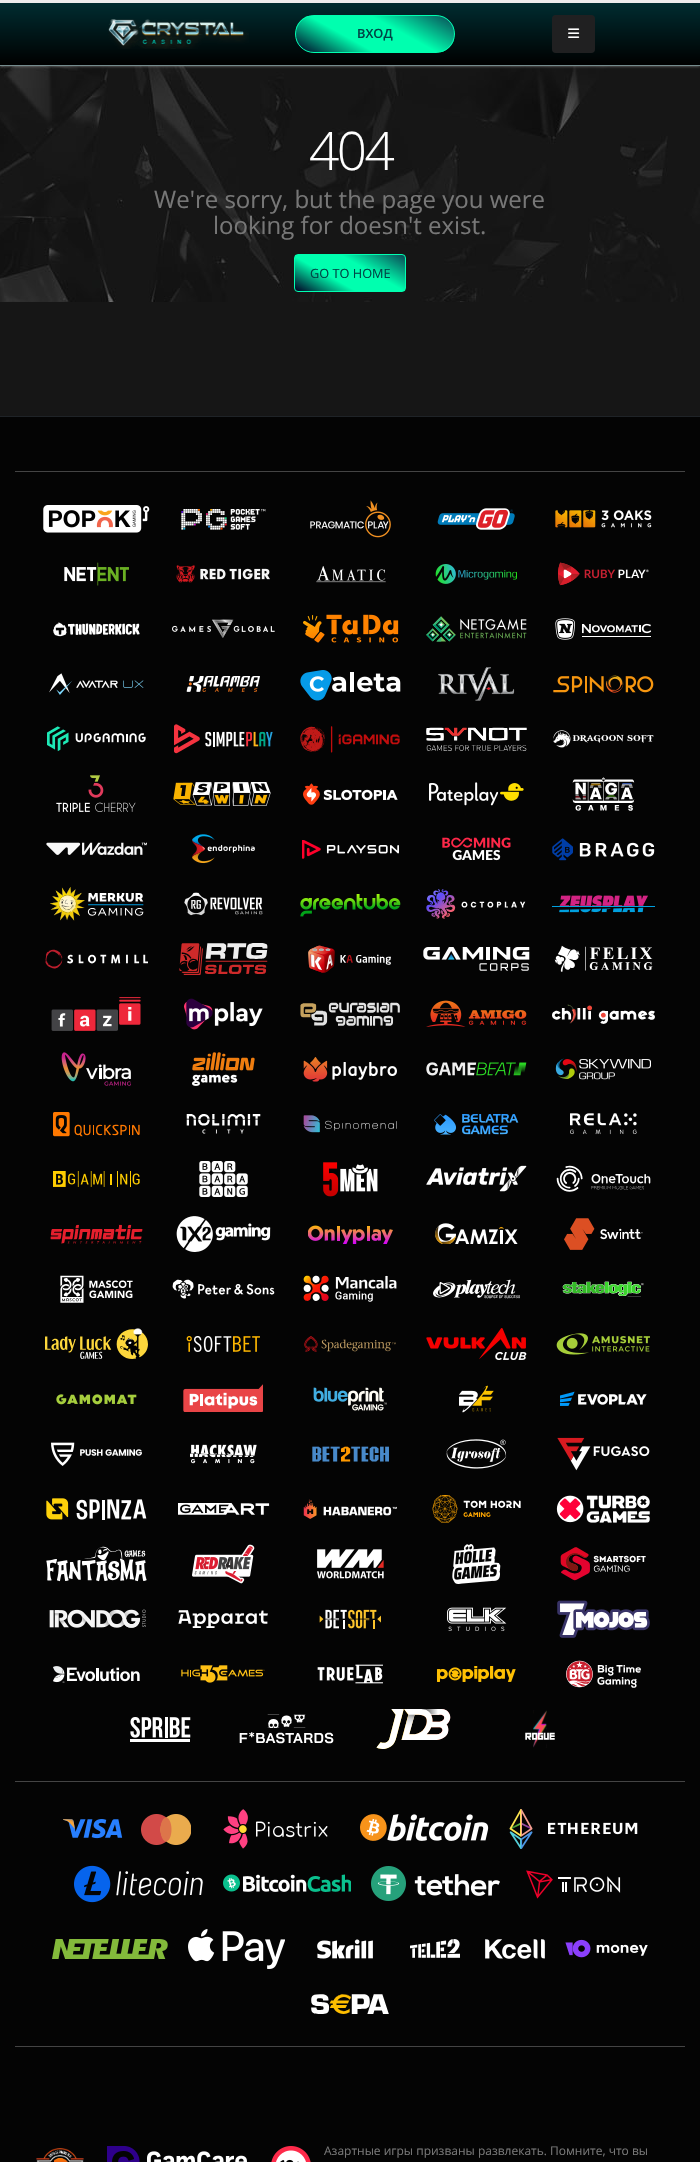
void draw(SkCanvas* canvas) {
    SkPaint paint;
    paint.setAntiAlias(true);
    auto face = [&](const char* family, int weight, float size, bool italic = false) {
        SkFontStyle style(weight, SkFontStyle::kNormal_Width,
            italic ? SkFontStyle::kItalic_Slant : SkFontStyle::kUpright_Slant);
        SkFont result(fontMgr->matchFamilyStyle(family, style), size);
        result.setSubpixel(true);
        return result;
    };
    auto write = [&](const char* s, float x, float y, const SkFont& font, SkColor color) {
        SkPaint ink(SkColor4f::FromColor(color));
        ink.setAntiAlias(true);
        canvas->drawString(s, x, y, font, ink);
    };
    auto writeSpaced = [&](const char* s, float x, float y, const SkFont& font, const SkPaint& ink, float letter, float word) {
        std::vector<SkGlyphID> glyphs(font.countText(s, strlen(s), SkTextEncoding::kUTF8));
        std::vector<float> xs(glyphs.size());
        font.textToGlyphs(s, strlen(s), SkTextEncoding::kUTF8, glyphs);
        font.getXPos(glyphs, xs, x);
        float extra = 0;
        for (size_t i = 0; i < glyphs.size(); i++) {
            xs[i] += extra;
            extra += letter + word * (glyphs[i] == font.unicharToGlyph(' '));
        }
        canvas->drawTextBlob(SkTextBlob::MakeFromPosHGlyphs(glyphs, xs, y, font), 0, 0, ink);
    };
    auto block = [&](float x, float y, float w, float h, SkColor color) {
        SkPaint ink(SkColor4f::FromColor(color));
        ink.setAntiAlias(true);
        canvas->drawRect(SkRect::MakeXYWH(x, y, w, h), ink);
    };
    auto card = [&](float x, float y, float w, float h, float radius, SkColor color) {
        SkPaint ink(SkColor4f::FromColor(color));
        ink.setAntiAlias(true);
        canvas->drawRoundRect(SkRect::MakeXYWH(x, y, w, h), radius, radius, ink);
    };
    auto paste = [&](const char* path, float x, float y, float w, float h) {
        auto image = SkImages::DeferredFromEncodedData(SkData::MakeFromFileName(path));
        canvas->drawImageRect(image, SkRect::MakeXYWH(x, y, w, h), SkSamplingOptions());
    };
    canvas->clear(SkColorSetRGB(22, 22, 22));
    paste("pic1.png", 0, 66, 700, 236);
    paint.setColor(SkColorSetARGB(128, 234, 234, 234));
    paint.setMaskFilter(SkMaskFilter::MakeBlur(kNormal_SkBlurStyle, 1.5f));
    canvas->drawRect(SkRect::MakeXYWH(0, 0, 700, 66), paint);
    paint.setMaskFilter(nullptr);
    {
        const SkColor colors[] = {SkColorSetRGB(0, 44, 48), SK_ColorBLACK};
        const float stops[] = {0, 1};
        const SkPoint ends[] = {{350, 3}, {350, 65}};
        paint.setShader(SkGradientShader::MakeLinear(ends, colors, stops, 2, SkTileMode::kClamp));
        paint.setAlpha(255);
    }
    canvas->drawRect(SkRect::MakeXYWH(0, 3, 700, 62), paint);
    block(0, 0, 700, 3, SkColorSetRGB(237, 237, 237));
    block(0, 65, 700, 1, SkColorSetRGB(117, 139, 141));
    paste("pic2.png", 108, 19, 141, 30);
    canvas->save();
    canvas->clipPath(SkPathBuilder().moveTo(314, 15).lineTo(436, 15).cubicTo(446.5f, 15, 455, 23.5f, 455, 34).cubicTo(455, 44.5f, 446.5f, 53, 436, 53).lineTo(314, 53).cubicTo(303.5f, 53, 295, 44.5f, 295, 34).cubicTo(295, 23.5f, 303.5f, 15, 314, 15).close().detach(), true);
    {
        const SkColor colors[] = {SkColorSetRGB(2, 0, 36), SkColorSetRGB(0, 255, 175), SkColorSetRGB(0, 255, 175), SkColorSetRGB(10, 73, 85)};
        const float stops[] = {0, 0.35f, 0.63f, 1};
        const SkPoint ends[] = {{349, 81}, {401, -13}};
        paint.setShader(SkGradientShader::MakeLinear(ends, colors, stops, 4, SkTileMode::kClamp));
        paint.setAlpha(255);
    }
    canvas->drawRect(SkRect::MakeXYWH(296, 16, 158, 36), paint);
    canvas->restore();
    paint.setStyle(SkPaint::kStroke_Style);
    paint.setStrokeWidth(1);
    paint.setShader(nullptr);
    paint.setColor(SkColorSetRGB(0, 255, 175));
    canvas->drawRoundRect(SkRect::MakeXYWH(295.5f, 15.5f, 159, 37), 18.5f, 18.5f, paint);
    auto kFont1 = face("Open Sans", 600, 12.75f);
    write("ВХОД", 357, 38, kFont1, SkColorSetRGB(0, 70, 70));
    card(552, 15, 43, 38, 4, SkColorSetRGB(32, 32, 33));
    paste("pic3.png", 568, 28, 12, 10);
    auto kFont2 = face("Open Sans", 300, 53);
    paint.setStyle(SkPaint::kFill_Style);
    paint.setColor(SK_ColorWHITE);
    writeSpaced("404", 309, 170, kFont2, paint, -2.5f, 0);
    auto kFont3 = face("Open Sans", 400, 24);
    write("We're sorry, but the page you were", 154, 208, kFont3, SkColorSetRGB(119, 119, 119));
    write("looking for doesn't exist.", 213, 234, kFont3, SkColorSetRGB(119, 119, 119));
    canvas->save();
    canvas->clipPath(SkPathBuilder().moveTo(298, 254).lineTo(402, 254).cubicTo(404, 254, 406, 256, 406, 258).lineTo(406, 288).cubicTo(406, 290, 404, 292, 402, 292).lineTo(298, 292).cubicTo(296, 292, 294, 290, 294, 288).lineTo(294, 258).cubicTo(294, 256, 296, 254, 298, 254).close().detach(), true);
    {
        const SkColor colors[] = {SkColorSetRGB(2, 0, 36), SkColorSetRGB(0, 255, 175), SkColorSetRGB(0, 255, 175), SkColorSetRGB(10, 73, 85)};
        const float stops[] = {0, 0.35f, 0.63f, 1};
        const SkPoint ends[] = {{329, 310}, {371, 236}};
        paint.setShader(SkGradientShader::MakeLinear(ends, colors, stops, 4, SkTileMode::kClamp));
        paint.setAlpha(255);
    }
    canvas->drawRect(SkRect::MakeXYWH(295, 255, 110, 36), paint);
    canvas->restore();
    paint.setStyle(SkPaint::kStroke_Style);
    paint.setShader(nullptr);
    paint.setColor(SkColorSetRGB(0, 255, 175));
    canvas->drawRoundRect(SkRect::MakeXYWH(294.5f, 254.5f, 111, 37), 3.5f, 3.5f, paint);
    auto kFont4 = face("Open Sans", 400, 12.75f);
    write("GO TO HOME", 310, 278, kFont4, SkColorSetRGB(0, 70, 70));
    block(0, 416, 700, 1, SkColorSetRGB(31, 35, 39));
    block(0, 417, 700, 1745, SkColorSetRGB(4, 4, 4));
    block(15, 471, 670, 1, SkColorSetRGB(68, 68, 68));
    paste("pic4.png", 43, 505, 107, 28);
    paste("pic5.png", 181, 509, 85, 21);
    paste("pic6.png", 310, 500, 81, 38);
    paste("pic7.png", 437, 508, 78, 22);
    paste("pic8.png", 555, 510, 97, 18);
    paste("pic9.png", 64, 562, 65, 24);
    paste("pic10.png", 176, 565, 94, 18);
    paste("pic11.png", 316, 566, 70, 17);
    paste("pic12.png", 435, 564, 82, 20);
    paste("pic13.png", 558, 562, 91, 24);
    paste("pic14.png", 53, 622, 87, 15);
    paste("pic15.png", 172, 619, 103, 19);
    paste("pic16.png", 303, 614, 96, 29);
    paste("pic17.png", 426, 616, 101, 26);
    paste("pic18.png", 555, 618, 96, 22);
    paste("pic19.png", 49, 673, 95, 22);
    paste("pic20.png", 186, 676, 74, 16);
    paste("pic21.png", 300, 670, 101, 31);
    paste("pic22.png", 438, 667, 77, 34);
    paste("pic23.png", 553, 675, 101, 18);
    paste("pic24.png", 47, 726, 99, 26);
    paste("pic25.png", 174, 724, 99, 30);
    paste("pic26.png", 300, 726, 100, 27);
    paste("pic27.png", 426, 727, 101, 24);
    paste("pic28.png", 553, 730, 101, 18);
    paste("pic29.png", 56, 775, 80, 37);
    paste("pic30.png", 173, 782, 98, 24);
    paste("pic31.png", 303, 783, 95, 22);
    paste("pic32.png", 429, 782, 95, 24);
    paste("pic33.png", 572, 777, 63, 34);
    paste("pic34.png", 46, 842, 101, 13);
    paste("pic35.png", 192, 834, 63, 30);
    paste("pic36.png", 302, 840, 97, 19);
    paste("pic37.png", 442, 837, 69, 24);
    paste("pic38.png", 552, 838, 103, 23);
    paste("pic39.png", 50, 887, 94, 34);
    paste("pic40.png", 184, 892, 79, 24);
    paste("pic41.png", 300, 894, 101, 23);
    paste("pic42.png", 426, 889, 100, 30);
    paste("pic43.png", 552, 895, 103, 18);
    paste("pic44.png", 45, 949, 103, 20);
    paste("pic45.png", 179, 943, 89, 32);
    paste("pic46.png", 308, 945, 83, 28);
    paste("pic47.png", 423, 947, 107, 24);
    paste("pic48.png", 554, 945, 99, 27);
    paste("pic49.png", 51, 997, 90, 34);
    paste("pic50.png", 184, 998, 79, 32);
    paste("pic51.png", 300, 1002, 100, 24);
    paste("pic52.png", 426, 1000, 101, 27);
    paste("pic53.png", 552, 1004, 103, 20);
    paste("pic54.png", 61, 1052, 70, 34);
    paste("pic55.png", 192, 1052, 63, 34);
    paste("pic56.png", 303, 1057, 94, 25);
    paste("pic57.png", 426, 1062, 101, 14);
    paste("pic58.png", 555, 1058, 96, 22);
    paste("pic59.png", 53, 1112, 87, 25);
    paste("pic60.png", 186, 1114, 75, 20);
    paste("pic61.png", 303, 1115, 94, 18);
    paste("pic62.png", 434, 1114, 85, 21);
    paste("pic63.png", 570, 1113, 67, 22);
    paste("pic64.png", 53, 1171, 87, 16);
    paste("pic65.png", 199, 1161, 49, 36);
    paste("pic66.png", 323, 1162, 55, 35);
    paste("pic67.png", 426, 1165, 101, 27);
    paste("pic68.png", 556, 1165, 95, 27);
    paste("pic69.png", 50, 1224, 93, 20);
    paste("pic70.png", 176, 1216, 95, 36);
    paste("pic71.png", 308, 1225, 85, 19);
    paste("pic72.png", 435, 1223, 83, 21);
    paste("pic73.png", 564, 1218, 79, 32);
    paste("pic74.png", 60, 1275, 73, 28);
    paste("pic75.png", 172, 1279, 103, 20);
    paste("pic76.png", 303, 1275, 94, 27);
    paste("pic77.png", 433, 1279, 87, 20);
    paste("pic78.png", 562, 1281, 82, 16);
    paste("pic79.png", 45, 1328, 103, 31);
    paste("pic80.png", 186, 1336, 74, 16);
    paste("pic81.png", 304, 1336, 92, 16);
    paste("pic82.png", 426, 1328, 101, 32);
    paste("pic83.png", 556, 1333, 94, 22);
    paste("pic84.png", 56, 1394, 81, 11);
    paste("pic85.png", 183, 1384, 80, 28);
    paste("pic86.png", 313, 1387, 74, 24);
    paste("pic87.png", 459, 1385, 35, 28);
    paste("pic88.png", 560, 1391, 87, 15);
    paste("pic89.png", 51, 1442, 91, 24);
    paste("pic90.png", 190, 1444, 67, 20);
    paste("pic91.png", 312, 1446, 77, 16);
    paste("pic92.png", 446, 1439, 61, 30);
    paste("pic93.png", 557, 1437, 93, 34);
    paste("pic94.png", 46, 1498, 101, 22);
    paste("pic95.png", 178, 1503, 92, 12);
    paste("pic96.png", 303, 1499, 94, 20);
    paste("pic97.png", 432, 1495, 89, 28);
    paste("pic98.png", 556, 1495, 94, 28);
    paste("pic99.png", 46, 1546, 101, 36);
    paste("pic100.png", 192, 1544, 63, 40);
    paste("pic101.png", 317, 1549, 67, 30);
    paste("pic102.png", 452, 1544, 49, 40);
    paste("pic103.png", 560, 1547, 86, 34);
    paste("pic104.png", 49, 1609, 97, 19);
    paste("pic105.png", 178, 1610, 90, 18);
    paste("pic106.png", 319, 1609, 62, 20);
    paste("pic107.png", 447, 1607, 60, 24);
    paste("pic108.png", 557, 1600, 93, 38);
    paste("pic109.png", 53, 1666, 87, 17);
    paste("pic110.png", 181, 1665, 84, 18);
    paste("pic111.png", 317, 1664, 66, 20);
    paste("pic112.png", 436, 1666, 80, 16);
    paste("pic113.png", 566, 1660, 75, 28);
    paste("pic114.png", 130, 1717, 61, 25);
    paste("pic115.png", 239, 1714, 95, 30);
    paste("pic116.png", 376, 1709, 75, 40);
    paste("pic117.png", 525, 1710, 30, 38);
    block(15, 1781, 670, 1, SkColorSetRGB(68, 68, 68));
    paste("pic118.png", 63, 1814, 128, 31);
    paste("pic119.png", 223, 1809, 105, 40);
    paste("pic120.png", 360, 1814, 129, 27);
    paste("pic121.png", 509, 1809, 129, 40);
    paste("pic122.png", 74, 1865, 129, 38);
    paste("pic123.png", 223, 1874, 128, 18);
    paste("pic124.png", 371, 1866, 129, 35);
    paste("pic125.png", 526, 1870, 95, 29);
    paste("pic126.png", 52, 1939, 116, 20);
    paste("pic127.png", 188, 1929, 97, 40);
    paste("pic128.png", 317, 1939, 56, 20);
    paste("pic129.png", 410, 1939, 50, 19);
    paste("pic130.png", 485, 1939, 60, 20);
    paste("pic131.png", 565, 1939, 83, 19);
    paste("pic132.png", 311, 1994, 78, 20);
    block(15, 2046, 670, 1, SkColorSetRGB(68, 68, 68));
    paste("pic133.png", 36, 2148, 48, 14);
    paste("pic134.png", 107, 2146, 140, 16);
    paste("pic135.png", 271, 2146, 40, 16);
    auto kFont5 = face("Open Sans", 400, 12);
    write("Азартные игры призваны развлекать. Помните, что вы", 324, 2155, kFont5, SkColorSetRGB(119, 119, 119));
}
